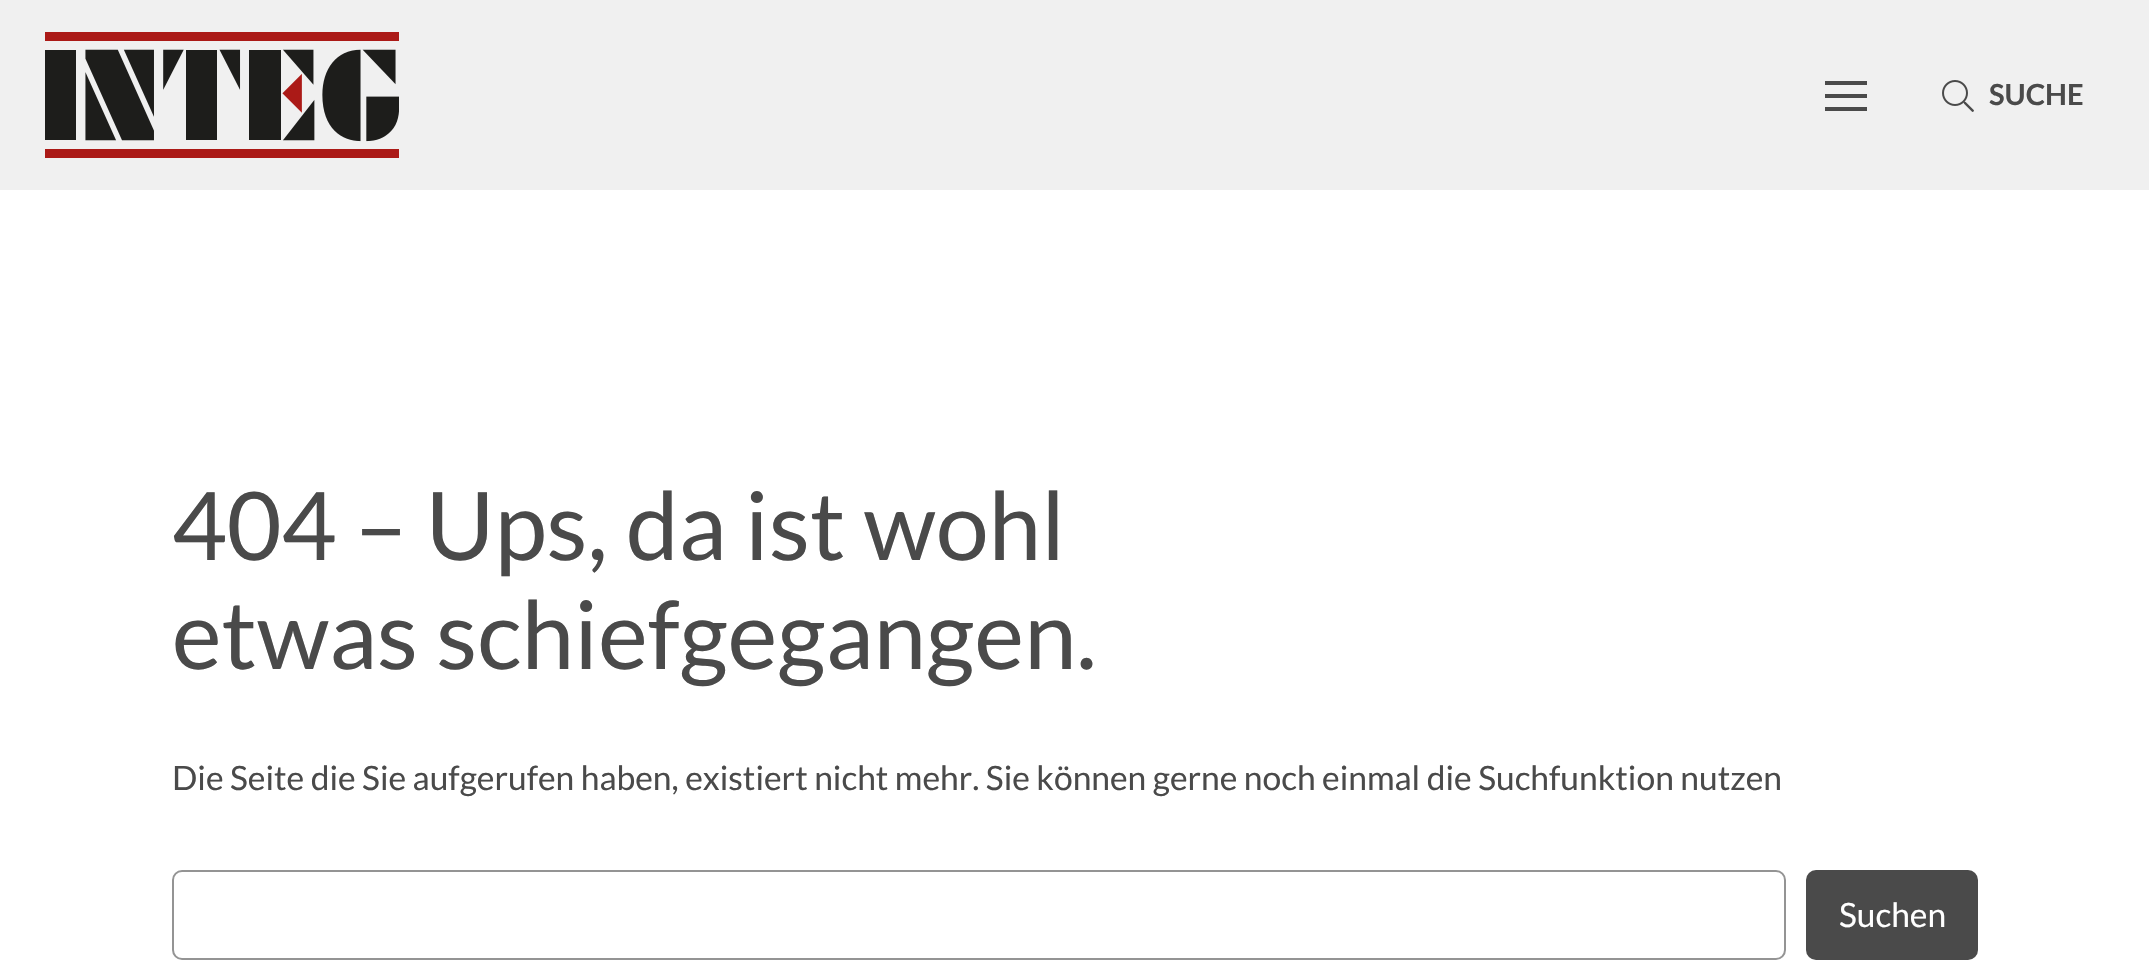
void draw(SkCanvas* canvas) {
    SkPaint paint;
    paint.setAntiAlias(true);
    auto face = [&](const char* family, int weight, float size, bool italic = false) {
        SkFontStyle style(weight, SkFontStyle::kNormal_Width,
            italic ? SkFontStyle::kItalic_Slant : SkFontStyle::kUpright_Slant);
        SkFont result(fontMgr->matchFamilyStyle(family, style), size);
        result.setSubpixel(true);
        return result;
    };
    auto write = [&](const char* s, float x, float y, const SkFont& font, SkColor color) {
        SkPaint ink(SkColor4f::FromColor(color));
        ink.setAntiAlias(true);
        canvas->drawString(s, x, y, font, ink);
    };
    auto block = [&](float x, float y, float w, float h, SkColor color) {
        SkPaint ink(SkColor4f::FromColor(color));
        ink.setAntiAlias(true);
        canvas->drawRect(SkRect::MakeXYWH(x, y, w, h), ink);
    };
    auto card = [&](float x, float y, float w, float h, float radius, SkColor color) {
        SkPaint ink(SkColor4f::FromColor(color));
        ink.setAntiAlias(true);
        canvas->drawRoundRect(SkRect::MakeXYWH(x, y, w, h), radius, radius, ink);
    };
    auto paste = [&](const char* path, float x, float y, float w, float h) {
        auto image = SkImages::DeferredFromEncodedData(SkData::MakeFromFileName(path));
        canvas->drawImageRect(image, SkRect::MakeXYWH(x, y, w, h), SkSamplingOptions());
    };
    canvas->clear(SK_ColorWHITE);
    block(0, 0, 2149, 190, SkColorSetRGB(240, 240, 240));
    paste("pic1.png", 45, 32, 354, 126);
    block(1825, 81, 42, 4, SkColorSetRGB(74, 74, 74));
    block(1825, 94, 42, 4, SkColorSetRGB(74, 74, 74));
    block(1825, 107, 42, 4, SkColorSetRGB(74, 74, 74));
    paste("pic2.png", 1942, 80, 32, 32);
    auto kFont1 = face("Lato", 700, 29);
    write("SUCHE", 1989, 105, kFont1, SkColorSetRGB(74, 74, 74));
    auto kFont2 = face("Lato", 400, 94.5f);
    write("404 – Ups, da ist wohl", 172, 560, kFont2, SkColorSetRGB(74, 74, 74));
    write("etwas schiefgegangen.", 172, 669, kFont2, SkColorSetRGB(74, 74, 74));
    auto kFont3 = face("Lato", 400, 33.6f);
    write("Die Seite die Sie aufgerufen haben, existiert nicht mehr. Sie können gerne noch einmal die Suchfunktion nutzen", 172, 790, kFont3, SkColorSetRGB(74, 74, 74));
    paint.setStyle(SkPaint::kStroke_Style);
    paint.setStrokeWidth(2);
    paint.setColor(SkColorSetRGB(148, 148, 148));
    canvas->drawRoundRect(SkRect::MakeXYWH(173, 871, 1612, 88), 9, 9, paint);
    card(1806, 870, 172, 90, 10, SkColorSetRGB(74, 74, 74));
    write("Suchen", 1839, 927, kFont3, SK_ColorWHITE);
}
